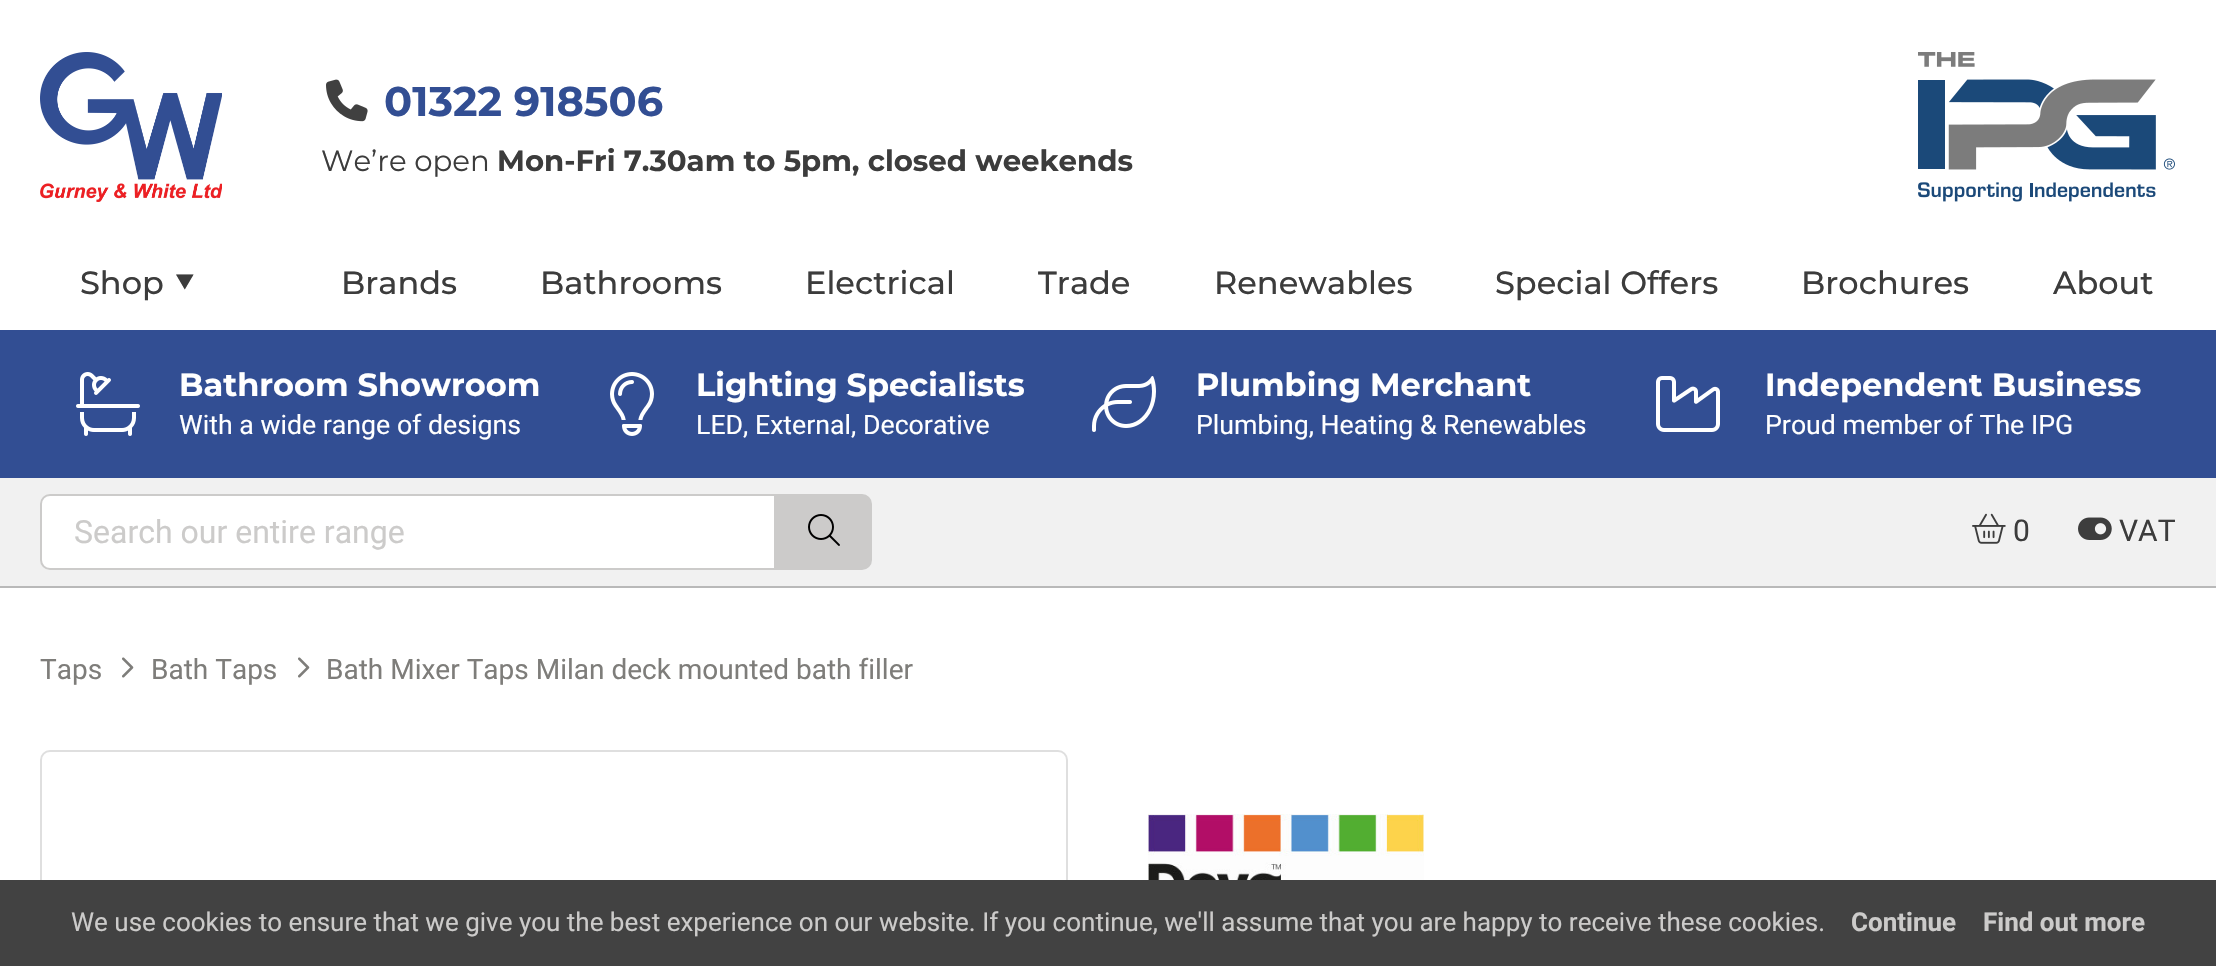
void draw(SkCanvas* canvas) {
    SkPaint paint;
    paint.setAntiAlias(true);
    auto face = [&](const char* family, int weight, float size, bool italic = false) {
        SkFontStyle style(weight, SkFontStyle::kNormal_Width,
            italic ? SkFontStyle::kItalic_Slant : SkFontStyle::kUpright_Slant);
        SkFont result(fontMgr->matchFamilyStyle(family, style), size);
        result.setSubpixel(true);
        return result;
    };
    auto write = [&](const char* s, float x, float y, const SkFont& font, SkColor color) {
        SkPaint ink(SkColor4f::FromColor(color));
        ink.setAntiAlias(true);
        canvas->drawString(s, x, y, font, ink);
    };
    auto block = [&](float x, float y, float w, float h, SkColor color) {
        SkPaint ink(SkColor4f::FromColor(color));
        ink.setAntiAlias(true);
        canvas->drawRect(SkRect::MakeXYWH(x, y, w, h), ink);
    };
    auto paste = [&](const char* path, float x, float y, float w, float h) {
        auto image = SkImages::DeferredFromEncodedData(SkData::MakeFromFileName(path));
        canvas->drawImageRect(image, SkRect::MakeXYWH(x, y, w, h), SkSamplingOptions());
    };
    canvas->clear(SK_ColorWHITE);
    paste("pic1.png", 40, 52, 182, 150);
    paste("pic2.png", 326, 79, 42, 43);
    auto kFont1 = face("Montserrat", 700, 41.5f);
    write("01322 918506", 384, 116, kFont1, SkColorSetRGB(50, 78, 147));
    auto kFont2 = face("Montserrat", 400, 29.2f);
    write("We’re open", 321, 171, kFont2, SkColorSetRGB(60, 60, 60));
    auto kFont3 = face("Montserrat", 700, 29.2f);
    write("Mon-Fri 7.30am to 5pm, closed weekends", 497, 171, kFont3, SkColorSetRGB(60, 60, 60));
    paste("pic3.png", 1918, 52, 257, 150);
    auto kFont4 = face("Montserrat", 500, 32);
    write("Shop", 80, 294, kFont4, SkColorSetRGB(60, 60, 60));
    auto kFont5 = face("FreeSans", 400, 32);
    write("⯆", 172, 294, kFont5, SkColorSetRGB(60, 60, 60));
    write("Brands", 341, 294, kFont4, SkColorSetRGB(60, 60, 60));
    write("Bathrooms", 540, 294, kFont4, SkColorSetRGB(60, 60, 60));
    write("Electrical", 805, 294, kFont4, SkColorSetRGB(60, 60, 60));
    write("Trade", 1038, 294, kFont4, SkColorSetRGB(60, 60, 60));
    write("Renewables", 1214, 294, kFont4, SkColorSetRGB(60, 60, 60));
    write("Special Offers", 1495, 294, kFont4, SkColorSetRGB(60, 60, 60));
    write("Brochures", 1801, 294, kFont4, SkColorSetRGB(60, 60, 60));
    write("About", 2053, 294, kFont4, SkColorSetRGB(60, 60, 60));
    block(0, 330, 2216, 148, SkColorSetRGB(50, 78, 147));
    paste("pic4.png", 76, 372, 64, 64);
    auto kFont6 = face("Montserrat", 700, 32);
    write("Bathroom Showroom", 179, 396, kFont6, SK_ColorWHITE);
    auto kFont7 = face("Roboto", 400, 26.7f);
    write("With a wide range of designs", 179, 434, kFont7, SK_ColorWHITE);
    paste("pic5.png", 610, 372, 44, 64);
    write("Lighting Specialists", 696, 396, kFont6, SK_ColorWHITE);
    write("LED, External, Decorative", 696, 434, kFont7, SK_ColorWHITE);
    paste("pic6.png", 1092, 376, 64, 56);
    write("Plumbing Merchant", 1196, 396, kFont6, SK_ColorWHITE);
    write("Plumbing, Heating & Renewables", 1196, 434, kFont7, SK_ColorWHITE);
    paste("pic7.png", 1656, 376, 64, 56);
    write("Independent Business", 1765, 396, kFont6, SK_ColorWHITE);
    write("Proud member of The IPG", 1765, 434, kFont7, SK_ColorWHITE);
    block(0, 478, 2216, 108, SkColorSetRGB(241, 241, 241));
    block(0, 586, 2216, 2, SkColorSetRGB(185, 185, 185));
    paint.setColor(SK_ColorWHITE);
    canvas->drawPath(SkPathBuilder().moveTo(50, 495).lineTo(775, 495).lineTo(775, 569).lineTo(50, 569).cubicTo(45, 569, 41, 565, 41, 560).lineTo(41, 504).cubicTo(41, 499, 45, 495, 50, 495).close().detach(), paint);
    paint.setStyle(SkPaint::kStroke_Style);
    paint.setStrokeWidth(2);
    paint.setColor(SkColorSetRGB(204, 203, 202));
    canvas->drawPath(SkPathBuilder().moveTo(50, 495).lineTo(775, 495).lineTo(775, 569).lineTo(50, 569).cubicTo(45, 569, 41, 565, 41, 560).lineTo(41, 504).cubicTo(41, 499, 45, 495, 50, 495).close().detach(), paint);
    auto kFont8 = face("Roboto", 400, 32);
    write("Search our entire range", 74, 543, kFont8, SkColorSetRGB(204, 203, 202));
    paint.setStyle(SkPaint::kFill_Style);
    canvas->drawPath(SkPathBuilder().moveTo(777, 495).lineTo(862, 495).cubicTo(867, 495, 871, 499, 871, 504).lineTo(871, 560).cubicTo(871, 565, 867, 569, 862, 569).lineTo(777, 569).close().detach(), paint);
    paint.setStyle(SkPaint::kStroke_Style);
    canvas->drawPath(SkPathBuilder().moveTo(777, 495).lineTo(862, 495).cubicTo(867, 495, 871, 499, 871, 504).lineTo(871, 560).cubicTo(871, 565, 867, 569, 862, 569).lineTo(777, 569).close().detach(), paint);
    paste("pic8.png", 808, 514, 32, 32);
    paste("pic9.png", 1972, 513, 34, 31);
    auto kFont9 = face("Roboto", 400, 30);
    write("0", 2013, 541, kFont9, SkColorSetRGB(60, 60, 60));
    paste("pic10.png", 2078, 517, 34, 23);
    write("VAT", 2119, 541, kFont9, SkColorSetRGB(60, 60, 60));
    auto kFont10 = face("Roboto", 400, 28);
    write("Taps", 40, 679, kFont10, SkColorSetRGB(126, 125, 122));
    paste("pic11.png", 122, 657, 12, 21);
    write("Bath Taps", 151, 679, kFont10, SkColorSetRGB(126, 125, 122));
    paste("pic11.png", 298, 657, 12, 21);
    write("Bath Mixer Taps Milan deck mounted bath filler", 326, 679, kFont10, SkColorSetRGB(126, 125, 122));
    paint.setColor(SkColorSetRGB(223, 223, 223));
    canvas->drawRoundRect(SkRect::MakeXYWH(41, 751, 1026, 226), 9, 9, paint);
    paste("pic12.png", 1148, 814, 276, 66);
    block(0, 880, 2216, 86, SkColorSetRGB(66, 66, 66));
    auto kFont11 = face("Roboto", 400, 26);
    write("We use cookies to ensure that we give you the best experience on our website. If you continue, we'll assume that you are happy to receive these cookies.", 71, 931, kFont11, SkColorSetRGB(204, 203, 202));
    auto kFont12 = face("Roboto", 700, 26);
    write("Continue", 1851, 931, kFont12, SkColorSetRGB(204, 203, 202));
    write("Find out more", 1983, 931, kFont12, SkColorSetRGB(204, 203, 202));
}
